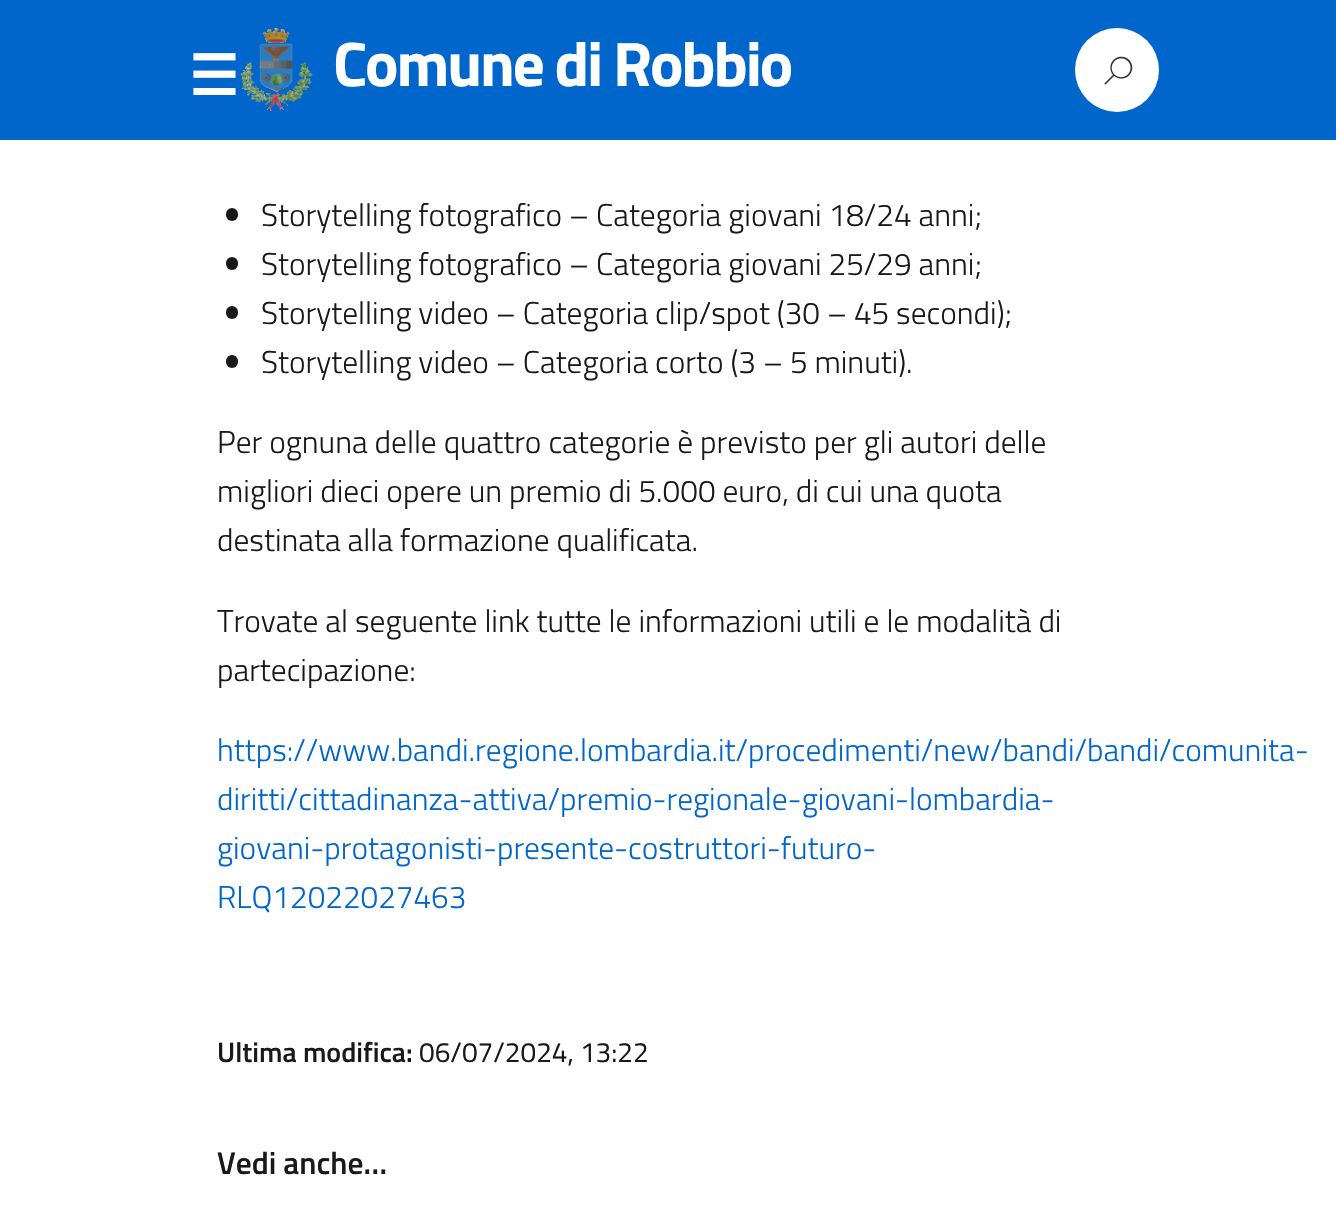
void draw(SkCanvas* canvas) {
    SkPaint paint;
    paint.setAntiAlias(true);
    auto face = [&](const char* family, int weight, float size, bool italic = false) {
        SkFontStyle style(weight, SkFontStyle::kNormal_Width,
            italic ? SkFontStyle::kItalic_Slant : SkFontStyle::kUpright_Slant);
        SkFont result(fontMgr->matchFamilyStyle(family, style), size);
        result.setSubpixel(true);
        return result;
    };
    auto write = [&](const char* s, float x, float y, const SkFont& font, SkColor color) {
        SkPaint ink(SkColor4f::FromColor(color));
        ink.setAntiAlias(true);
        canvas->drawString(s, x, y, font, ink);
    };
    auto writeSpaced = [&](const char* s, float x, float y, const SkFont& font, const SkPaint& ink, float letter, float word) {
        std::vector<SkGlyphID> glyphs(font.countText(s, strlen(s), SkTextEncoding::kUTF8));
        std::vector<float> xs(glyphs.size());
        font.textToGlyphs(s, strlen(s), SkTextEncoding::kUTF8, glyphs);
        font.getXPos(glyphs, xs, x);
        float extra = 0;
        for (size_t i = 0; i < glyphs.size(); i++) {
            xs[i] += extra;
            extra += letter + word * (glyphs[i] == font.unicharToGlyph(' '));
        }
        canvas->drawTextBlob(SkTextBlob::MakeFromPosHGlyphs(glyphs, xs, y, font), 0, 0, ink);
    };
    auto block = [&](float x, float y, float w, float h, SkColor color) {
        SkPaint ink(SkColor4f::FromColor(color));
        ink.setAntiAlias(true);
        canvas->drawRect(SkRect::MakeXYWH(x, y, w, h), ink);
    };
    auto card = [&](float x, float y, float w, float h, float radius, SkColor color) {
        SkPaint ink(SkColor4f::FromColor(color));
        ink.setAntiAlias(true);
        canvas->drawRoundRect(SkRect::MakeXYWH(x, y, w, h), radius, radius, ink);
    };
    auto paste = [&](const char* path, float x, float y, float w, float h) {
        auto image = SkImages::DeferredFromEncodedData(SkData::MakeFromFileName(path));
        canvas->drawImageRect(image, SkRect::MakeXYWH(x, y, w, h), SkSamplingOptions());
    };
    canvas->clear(SK_ColorWHITE);
    block(0, 0, 1336, 140, SkColorSetRGB(0, 102, 204));
    auto kFont1 = face("DejaVu Sans", 700, 55);
    write("☰", 189, 95, kFont1, SK_ColorWHITE);
    paste("pic1.png", 240, 28, 73, 83);
    auto kFont2 = face("Titillium Web", 700, 63);
    paint.setColor(SK_ColorWHITE);
    writeSpaced("Comune di Robbio", 333, 86, kFont2, paint, -2.1f, 0);
    canvas->drawCircle(1117, 70, 42, paint);
    paste("pic2.png", 1104, 56, 29, 29);
    card(226, 208, 12, 13, 6, SkColorSetRGB(25, 25, 26));
    auto kFont3 = face("Titillium Web", 300, 31.5f);
    write("Storytelling fotografico – Categoria giovani 18/24 anni;", 261, 226, kFont3, SkColorSetRGB(25, 25, 26));
    card(226, 257, 12, 13, 6, SkColorSetRGB(25, 25, 26));
    write("Storytelling fotografico – Categoria giovani 25/29 anni;", 261, 275, kFont3, SkColorSetRGB(25, 25, 26));
    card(226, 306, 12, 13, 6, SkColorSetRGB(25, 25, 26));
    write("Storytelling video – Categoria clip/spot (30 – 45 secondi);", 261, 324, kFont3, SkColorSetRGB(25, 25, 26));
    card(226, 355, 12, 13, 6, SkColorSetRGB(25, 25, 26));
    write("Storytelling video – Categoria corto (3 – 5 minuti).", 261, 373, kFont3, SkColorSetRGB(25, 25, 26));
    write("Per ognuna delle quattro categorie è previsto per gli autori delle", 217, 453, kFont3, SkColorSetRGB(25, 25, 26));
    write("migliori dieci opere un premio di 5.000 euro, di cui una quota", 217, 502, kFont3, SkColorSetRGB(25, 25, 26));
    write("destinata alla formazione qualificata.", 217, 551, kFont3, SkColorSetRGB(25, 25, 26));
    write("Trovate al seguente link tutte le informazioni utili e le modalità di", 217, 632, kFont3, SkColorSetRGB(25, 25, 26));
    write("partecipazione:", 217, 681, kFont3, SkColorSetRGB(25, 25, 26));
    write("https://www.bandi.regione.lombardia.it/procedimenti/new/bandi/bandi/comunita-", 217, 761, kFont3, SkColorSetRGB(0, 102, 204));
    write("diritti/cittadinanza-attiva/premio-regionale-giovani-lombardia-", 217, 810, kFont3, SkColorSetRGB(0, 102, 204));
    write("giovani-protagonisti-presente-costruttori-futuro-", 217, 859, kFont3, SkColorSetRGB(0, 102, 204));
    write("RLQ12022027463", 217, 908, kFont3, SkColorSetRGB(0, 102, 204));
    auto kFont4 = face("Titillium Web", 600, 28);
    write("Ultima modifica:", 217, 1062, kFont4, SkColorSetRGB(25, 25, 26));
    auto kFont5 = face("Titillium Web", 400, 28);
    write("06/07/2024, 13:22", 419, 1062, kFont5, SkColorSetRGB(25, 25, 26));
    auto kFont6 = face("Titillium Web", 600, 31.5f);
    write("Vedi anche…", 217, 1174, kFont6, SkColorSetRGB(25, 25, 26));
}
